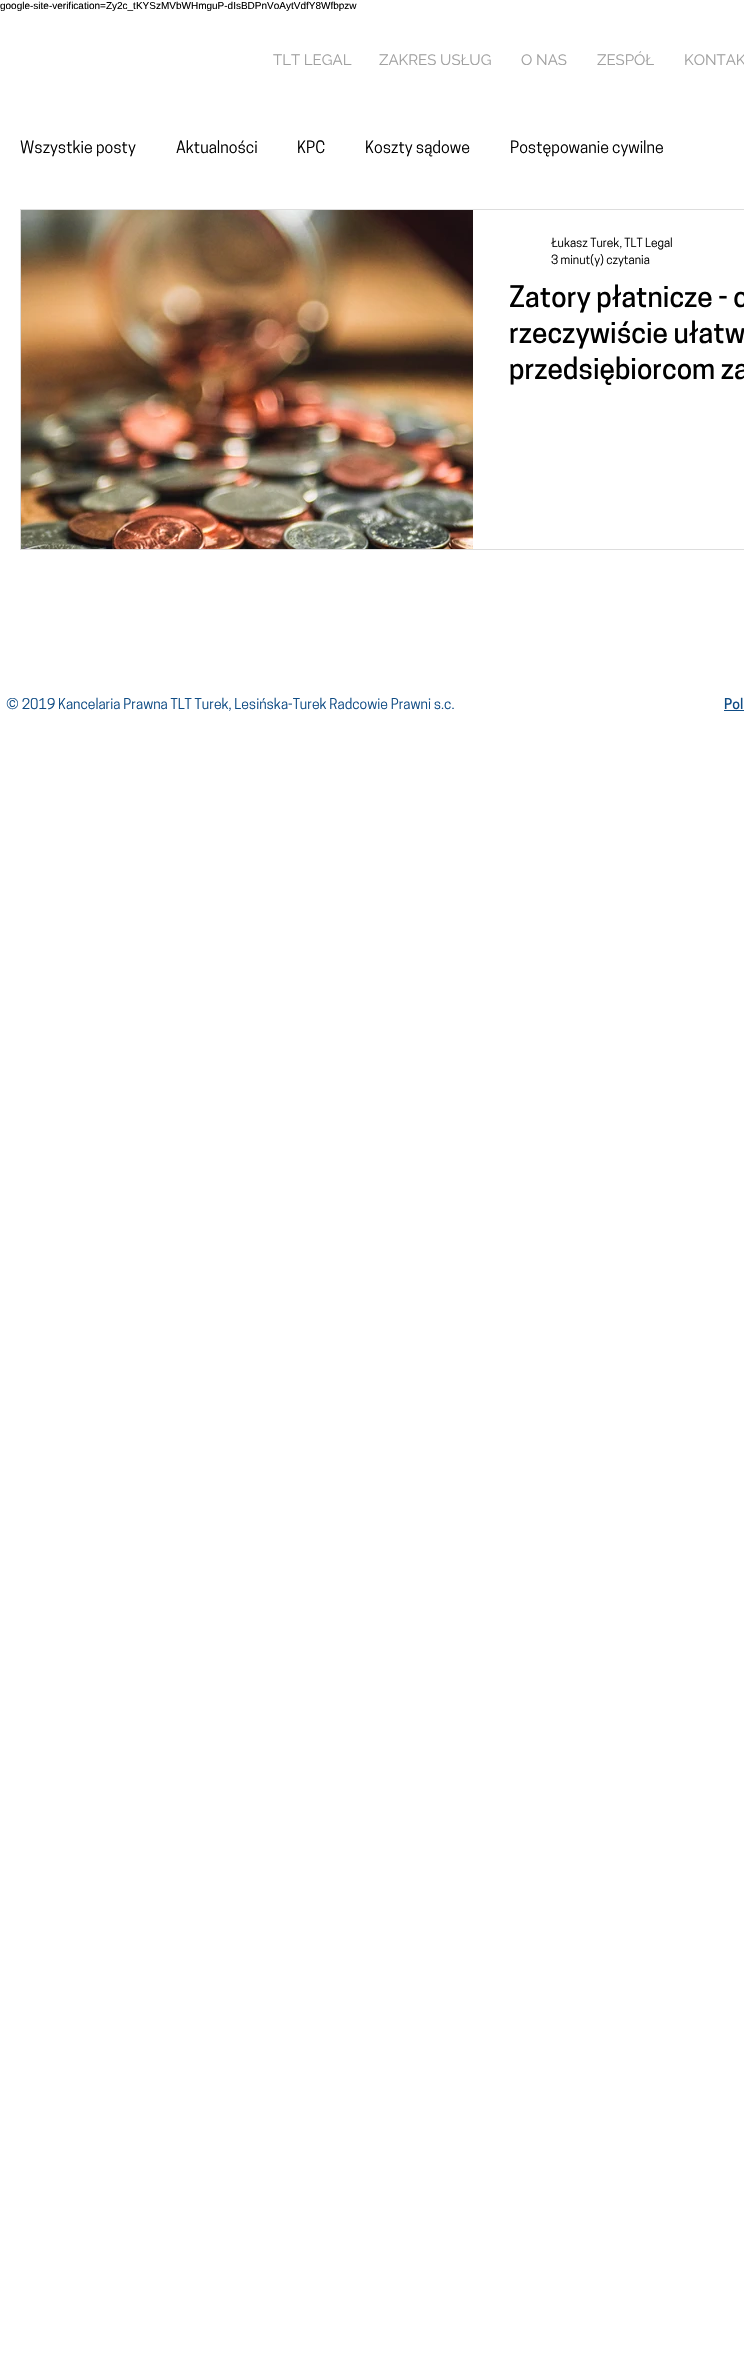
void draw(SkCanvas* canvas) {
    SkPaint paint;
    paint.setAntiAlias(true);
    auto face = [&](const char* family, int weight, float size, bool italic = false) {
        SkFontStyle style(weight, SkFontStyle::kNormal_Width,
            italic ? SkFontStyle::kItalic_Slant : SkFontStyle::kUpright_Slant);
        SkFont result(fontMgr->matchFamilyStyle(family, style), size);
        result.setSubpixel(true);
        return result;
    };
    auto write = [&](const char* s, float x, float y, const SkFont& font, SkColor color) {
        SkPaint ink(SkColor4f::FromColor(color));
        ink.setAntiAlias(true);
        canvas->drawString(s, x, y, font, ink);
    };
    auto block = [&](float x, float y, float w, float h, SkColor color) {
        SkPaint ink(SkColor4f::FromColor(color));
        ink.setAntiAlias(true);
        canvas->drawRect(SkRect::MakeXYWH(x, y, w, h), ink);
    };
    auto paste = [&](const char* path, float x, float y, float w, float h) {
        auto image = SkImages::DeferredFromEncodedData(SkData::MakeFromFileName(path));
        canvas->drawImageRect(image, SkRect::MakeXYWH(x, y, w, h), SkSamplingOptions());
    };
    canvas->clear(SK_ColorWHITE);
    auto kFont1 = face("Liberation Sans", 400, 10);
    write("google-site-verification=Zy2c_tKYSzMVbWHmguP-dIsBDPnVoAytVdfY8Wfbpzw", 0, 9, kFont1, SK_ColorBLACK);
    block(2, 11, 339, 1, SK_ColorWHITE);
    auto kFont2 = face("Raleway", 400, 15);
    write("TLT LEGAL", 273, 65, kFont2, SkColorSetRGB(160, 160, 160));
    write("ZAKRES USŁUG", 379, 65, kFont2, SkColorSetRGB(160, 160, 160));
    write("O NAS", 521, 65, kFont2, SkColorSetRGB(160, 160, 160));
    write("ZESPÓŁ", 597, 65, kFont2, SkColorSetRGB(160, 160, 160));
    write("KONTAK", 684, 65, kFont2, SkColorSetRGB(160, 160, 160));
    auto kFont3 = face("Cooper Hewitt", 400, 16);
    write("Wszystkie posty", 20, 153, kFont3, SK_ColorBLACK);
    write("Aktualności", 176, 153, kFont3, SK_ColorBLACK);
    write("KPC", 297, 153, kFont3, SK_ColorBLACK);
    write("Koszty sądowe", 365, 153, kFont3, SK_ColorBLACK);
    write("Postępowanie cywilne", 510, 153, kFont3, SK_ColorBLACK);
    paint.setStyle(SkPaint::kStroke_Style);
    paint.setStrokeWidth(1);
    paint.setColor(SkColorSetRGB(221, 221, 221));
    canvas->drawRect(SkRect::MakeXYWH(20.5f, 209.5f, 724, 340), paint);
    paste("pic1.png", 21, 210, 452, 339);
    auto kFont4 = face("Cooper Hewitt", 400, 12);
    write("Łukasz Turek, TLT Legal", 551, 247, kFont4, SK_ColorBLACK);
    write("3 minut(y) czytania", 551, 264, kFont4, SK_ColorBLACK);
    auto kFont5 = face("Cooper Hewitt", 500, 28);
    write("Zatory płatnicze - c", 509, 307, kFont5, SK_ColorBLACK);
    write("rzeczywiście ułatw", 509, 343, kFont5, SK_ColorBLACK);
    write("przedsiębiorcom za", 509, 379, kFont5, SK_ColorBLACK);
    auto kFont6 = face("Cooper Hewitt", 400, 14);
    write("© 2019 Kancelaria Prawna TLT Turek, Lesińska-Turek Radcowie Prawni s.c.", 6, 709, kFont6, SkColorSetRGB(15, 76, 133));
    auto kFont7 = face("Cooper Hewitt", 500, 14);
    write("Pol", 724, 709, kFont7, SkColorSetRGB(15, 76, 133));
    block(724, 710, 20, 1, SkColorSetRGB(15, 76, 133));
}
